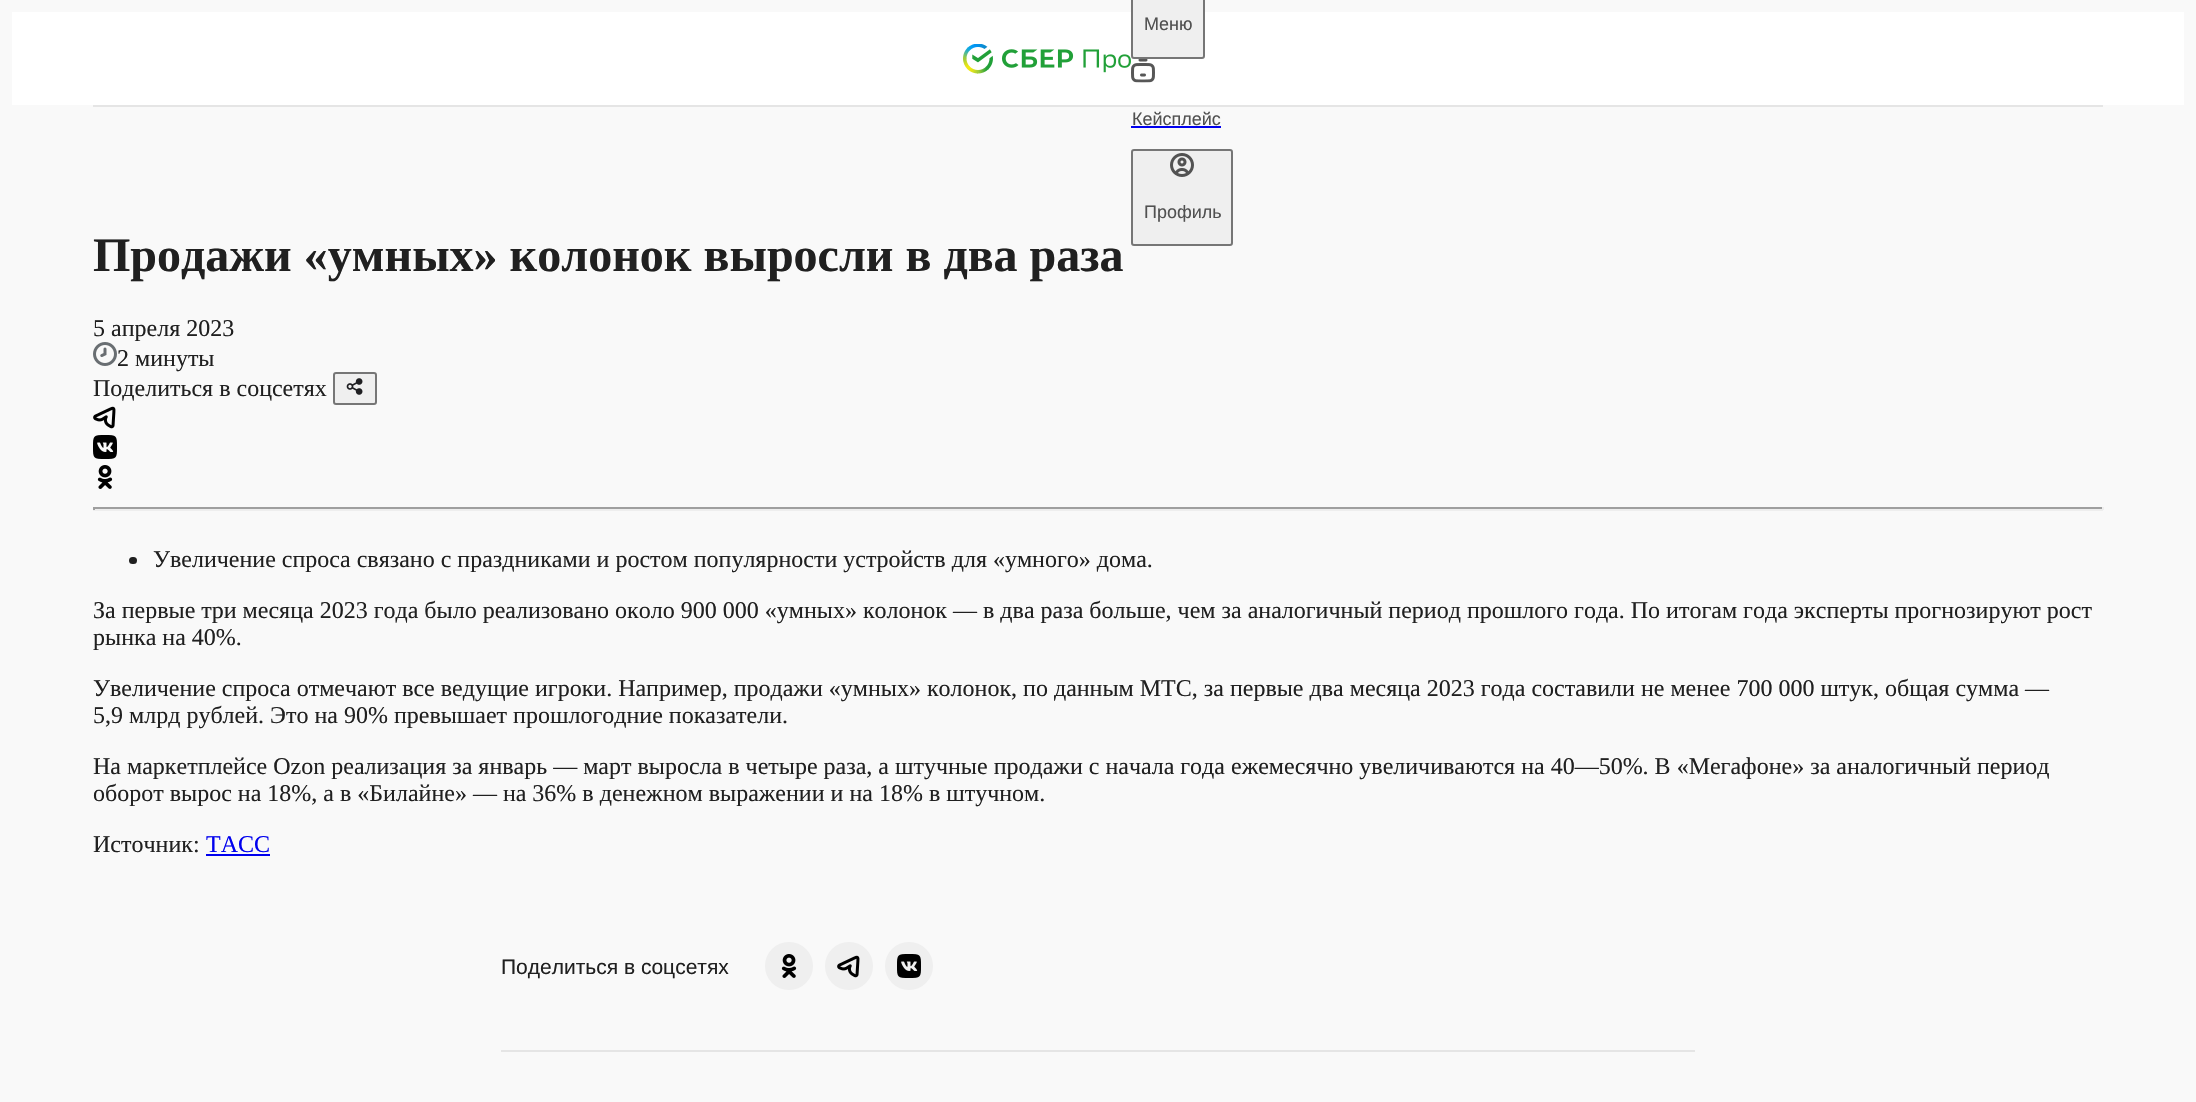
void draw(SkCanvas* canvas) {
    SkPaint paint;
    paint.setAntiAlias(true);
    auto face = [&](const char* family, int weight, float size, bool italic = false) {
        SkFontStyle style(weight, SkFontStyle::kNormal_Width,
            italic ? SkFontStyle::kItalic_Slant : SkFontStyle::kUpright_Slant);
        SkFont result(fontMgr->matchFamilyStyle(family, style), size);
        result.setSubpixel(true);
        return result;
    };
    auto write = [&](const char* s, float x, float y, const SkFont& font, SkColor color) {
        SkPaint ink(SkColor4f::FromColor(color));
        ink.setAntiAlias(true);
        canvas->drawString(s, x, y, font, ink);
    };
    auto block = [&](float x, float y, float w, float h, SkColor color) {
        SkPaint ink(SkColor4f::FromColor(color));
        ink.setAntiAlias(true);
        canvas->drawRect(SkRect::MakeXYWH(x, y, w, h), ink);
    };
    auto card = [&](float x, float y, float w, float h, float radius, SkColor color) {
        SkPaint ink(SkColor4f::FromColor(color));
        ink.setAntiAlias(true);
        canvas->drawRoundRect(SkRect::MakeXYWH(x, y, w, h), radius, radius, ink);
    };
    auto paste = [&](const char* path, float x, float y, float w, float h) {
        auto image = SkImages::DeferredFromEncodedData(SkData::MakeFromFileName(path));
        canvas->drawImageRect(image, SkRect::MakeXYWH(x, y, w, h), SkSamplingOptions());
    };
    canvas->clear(SkColorSetRGB(249, 249, 249));
    block(12, 12, 2172, 93, SK_ColorWHITE);
    block(93, 105, 2010, 2, SkColorSetRGB(229, 229, 229));
    paste("pic1.png", 963, 44, 168, 30);
    paint.setColor(SkColorSetRGB(239, 239, 239));
    canvas->drawRoundRect(SkRect::MakeXYWH(1132, -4, 72, 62), 2, 2, paint);
    paint.setStyle(SkPaint::kStroke_Style);
    paint.setStrokeWidth(2);
    paint.setColor(SkColorSetRGB(118, 118, 118));
    canvas->drawRoundRect(SkRect::MakeXYWH(1132, -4, 72, 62), 2, 2, paint);
    auto kFont1 = face("Liberation Sans", 400, 18);
    write("Меню", 1144, 30, kFont1, SkColorSetRGB(81, 81, 81));
    paste("pic2.png", 1131, 59, 24, 24);
    write("Кейсплейс", 1132, 125, kFont1, SkColorSetRGB(81, 81, 81));
    block(1131, 126, 90, 2, SkColorSetRGB(0, 0, 238));
    paint.setStyle(SkPaint::kFill_Style);
    paint.setColor(SkColorSetRGB(239, 239, 239));
    canvas->drawRoundRect(SkRect::MakeXYWH(1132, 150, 100, 95), 2, 2, paint);
    paint.setStyle(SkPaint::kStroke_Style);
    paint.setColor(SkColorSetRGB(118, 118, 118));
    canvas->drawRoundRect(SkRect::MakeXYWH(1132, 150, 100, 95), 2, 2, paint);
    paste("pic3.png", 1170, 153, 24, 24);
    write("Профиль", 1144, 218, kFont1, SkColorSetRGB(81, 81, 81));
    auto kFont2 = face("Liberation Serif", 700, 48);
    write("Продажи «умных» колонок выросли в два раза", 93, 271, kFont2, SkColorSetRGB(32, 32, 32));
    auto kFont3 = face("Liberation Serif", 400, 24);
    write("5 апреля 2023", 93, 336, kFont3, SkColorSetRGB(32, 32, 32));
    paste("pic4.png", 93, 342, 24, 24);
    write("2 минуты", 117, 366, kFont3, SkColorSetRGB(32, 32, 32));
    write("Поделиться в соцсетях", 93, 396, kFont3, SkColorSetRGB(32, 32, 32));
    paint.setStyle(SkPaint::kFill_Style);
    paint.setColor(SkColorSetRGB(239, 239, 239));
    canvas->drawRoundRect(SkRect::MakeXYWH(334, 373, 42, 31), 2, 2, paint);
    paint.setStyle(SkPaint::kStroke_Style);
    paint.setColor(SkColorSetRGB(118, 118, 118));
    canvas->drawRoundRect(SkRect::MakeXYWH(334, 373, 42, 31), 2, 2, paint);
    paste("pic5.png", 346, 378, 17, 17);
    paste("pic6.png", 93, 406, 23, 23);
    paste("pic7.png", 93, 435, 24, 24);
    paste("pic8.png", 97, 465, 16, 24);
    block(93, 507, 2010, 2, SkColorSetRGB(159, 159, 159));
    block(2102, 507, 2, 3, SkColorSetRGB(238, 238, 238));
    block(93, 509, 2010, 2, SkColorSetRGB(238, 238, 238));
    block(93, 507, 2, 3, SkColorSetRGB(159, 159, 159));
    card(129, 557, 8, 7, 3.5f, SkColorSetRGB(32, 32, 32));
    write("Увеличение спроса связано с праздниками и ростом популярности устройств для «умного» дома.", 153, 567, kFont3, SkColorSetRGB(32, 32, 32));
    write("За первые три месяца 2023 года было реализовано около 900 000 «умных» колонок — в два раза больше, чем за аналогичный период прошлого года. По итогам года эксперты прогнозируют рост", 93, 618, kFont3, SkColorSetRGB(32, 32, 32));
    write("рынка на 40%.", 93, 645, kFont3, SkColorSetRGB(32, 32, 32));
    write("Увеличение спроса отмечают все ведущие игроки. Например, продажи «умных» колонок, по данным МТС, за первые два месяца 2023 года составили не менее 700 000 штук, общая сумма —", 93, 696, kFont3, SkColorSetRGB(32, 32, 32));
    write("5,9 млрд рублей. Это на 90% превышает прошлогодние показатели.", 93, 723, kFont3, SkColorSetRGB(32, 32, 32));
    write("На маркетплейсе Ozon реализация за январь — март выросла в четыре раза, а штучные продажи с начала года ежемесячно увеличиваются на 40—50%. В «Мегафоне» за аналогичный период", 93, 774, kFont3, SkColorSetRGB(32, 32, 32));
    write("оборот вырос на 18%, а в «Билайне» — на 36% в денежном выражении и на 18% в штучном.", 93, 801, kFont3, SkColorSetRGB(32, 32, 32));
    write("Источник:", 93, 852, kFont3, SkColorSetRGB(32, 32, 32));
    write("ТАСС", 206, 852, kFont3, SkColorSetRGB(0, 0, 238));
    block(206, 854, 64, 2, SkColorSetRGB(0, 0, 238));
    auto kFont4 = face("Liberation Sans", 400, 21);
    write("Поделиться в соцсетях", 501, 974, kFont4, SkColorSetRGB(32, 32, 32));
    paint.setStyle(SkPaint::kFill_Style);
    paint.setColor(SkColorSetRGB(239, 239, 239));
    canvas->drawCircle(789, 966, 24, paint);
    paste("pic9.png", 781, 954, 16, 24);
    canvas->drawCircle(849, 966, 24, paint);
    paste("pic10.png", 837, 955, 23, 23);
    canvas->drawCircle(909, 966, 24, paint);
    paste("pic11.png", 897, 954, 24, 24);
    block(501, 1050, 1194, 2, SkColorSetRGB(229, 229, 229));
}
